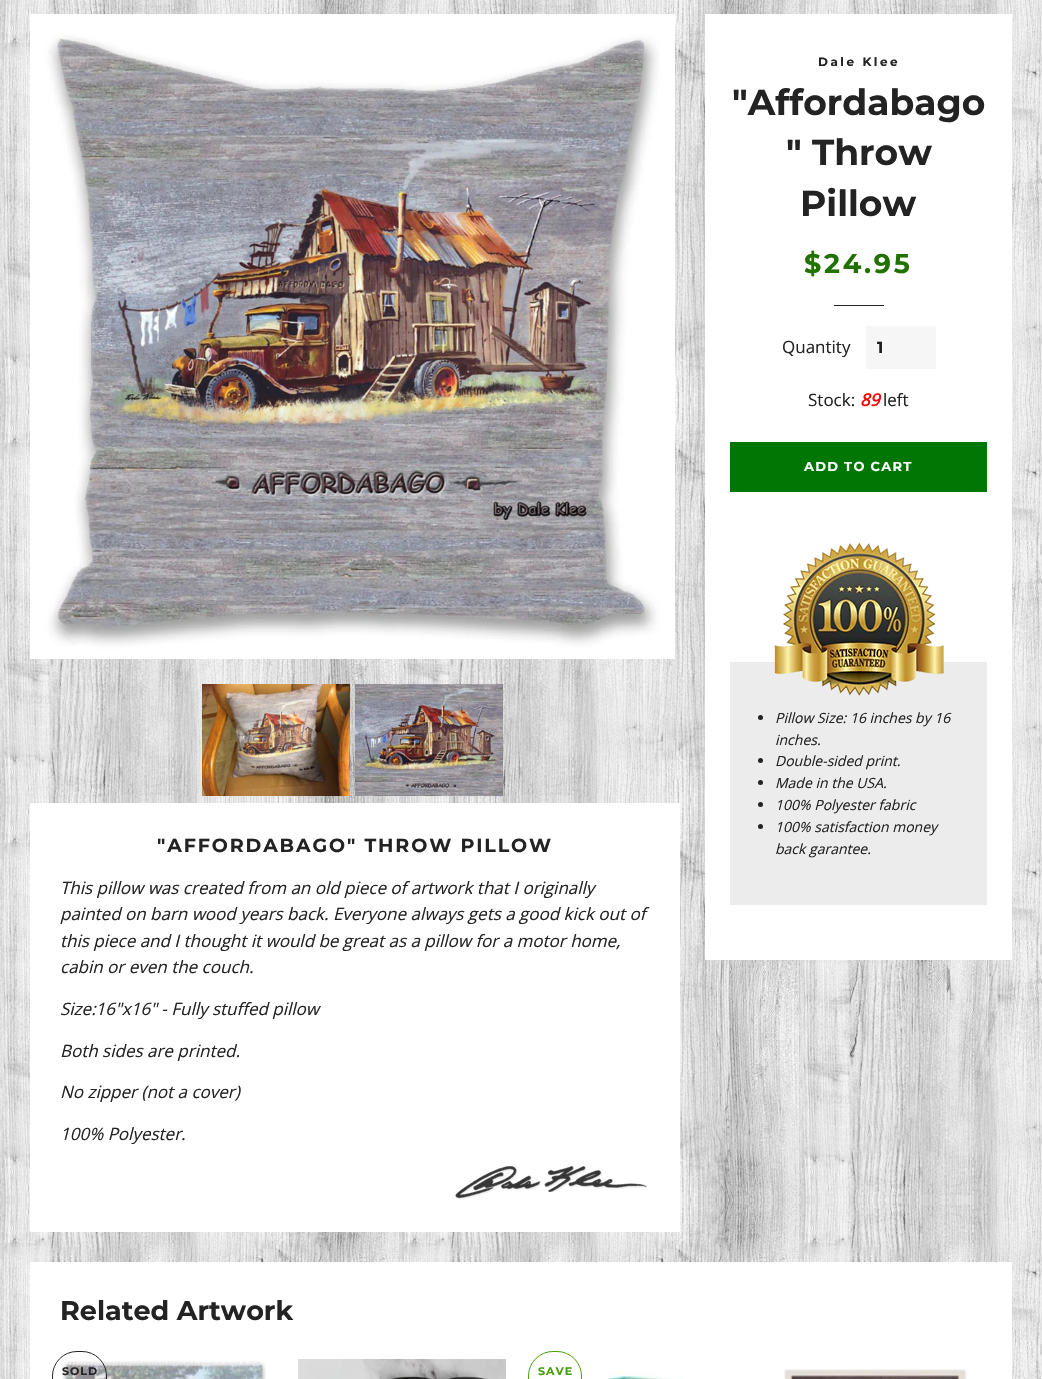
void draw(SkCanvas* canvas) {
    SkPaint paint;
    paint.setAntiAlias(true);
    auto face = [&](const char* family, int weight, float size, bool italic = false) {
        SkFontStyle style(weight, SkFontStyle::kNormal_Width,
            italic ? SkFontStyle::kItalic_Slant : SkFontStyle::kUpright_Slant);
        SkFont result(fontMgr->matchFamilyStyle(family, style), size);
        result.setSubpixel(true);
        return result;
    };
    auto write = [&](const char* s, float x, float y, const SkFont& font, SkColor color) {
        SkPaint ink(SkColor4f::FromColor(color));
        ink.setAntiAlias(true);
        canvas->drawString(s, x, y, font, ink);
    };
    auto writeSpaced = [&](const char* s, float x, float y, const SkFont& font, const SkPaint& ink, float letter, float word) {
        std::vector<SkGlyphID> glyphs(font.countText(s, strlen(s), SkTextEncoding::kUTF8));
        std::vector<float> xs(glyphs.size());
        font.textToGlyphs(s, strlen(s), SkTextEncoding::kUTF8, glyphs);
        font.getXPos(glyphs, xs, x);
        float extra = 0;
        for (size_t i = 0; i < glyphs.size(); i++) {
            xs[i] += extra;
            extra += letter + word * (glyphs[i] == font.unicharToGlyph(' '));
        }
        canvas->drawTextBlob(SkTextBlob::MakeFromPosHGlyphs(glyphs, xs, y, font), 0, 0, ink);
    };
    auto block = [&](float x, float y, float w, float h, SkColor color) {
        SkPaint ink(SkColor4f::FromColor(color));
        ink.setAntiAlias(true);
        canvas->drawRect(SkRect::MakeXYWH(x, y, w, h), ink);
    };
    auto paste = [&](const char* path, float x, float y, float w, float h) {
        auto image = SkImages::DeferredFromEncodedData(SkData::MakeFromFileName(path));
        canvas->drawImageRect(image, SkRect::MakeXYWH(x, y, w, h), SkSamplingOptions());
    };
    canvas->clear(SK_ColorWHITE);
    paste("pic1.png", 0, 0, 1042, 1379);
    paste("pic2.png", 30, 14, 645, 645);
    paste("pic3.png", 202, 684, 148, 112);
    paste("pic4.png", 355, 684, 148, 112);
    block(705, 14, 307, 946, SK_ColorWHITE);
    auto kFont1 = face("Montserrat", 100, 12);
    paint.setColor(SkColorSetRGB(35, 35, 35));
    writeSpaced("Dale Klee", 818, 66, kFont1, paint, 2.5f, 0);
    auto kFont2 = face("Montserrat", 100, 36);
    write("\"Affordabago", 732, 115, kFont2, SkColorSetRGB(35, 35, 35));
    write("\" Throw", 786, 165, kFont2, SkColorSetRGB(35, 35, 35));
    write("Pillow", 800, 216, kFont2, SkColorSetRGB(35, 35, 35));
    auto kFont3 = face("Montserrat", 100, 27);
    paint.setColor(SkColorSetRGB(32, 113, 0));
    writeSpaced("$24.95", 804, 273, kFont3, paint, 2.75f, 0);
    block(834, 305, 50, 1, SkColorSetRGB(35, 35, 35));
    auto kFont4 = face("Open Sans", 400, 17);
    write("Quantity", 782, 353, kFont4, SkColorSetRGB(35, 35, 35));
    block(866, 326, 70, 43, SkColorSetRGB(246, 246, 246));
    auto kFont5 = face("Montserrat", 100, 16);
    paint.setColor(SkColorSetRGB(28, 29, 29));
    writeSpaced("1", 877, 353, kFont5, paint, 2, 0);
    write("Stock:", 808, 406, kFont4, SkColorSetRGB(35, 35, 35));
    auto kFont6 = face("Open Sans", 700, 17, true);
    write("89", 860, 406, kFont6, SkColorSetRGB(255, 0, 0));
    write("left", 883, 406, kFont4, SkColorSetRGB(35, 35, 35));
    block(730, 442, 257, 50, SkColorSetRGB(0, 119, 5));
    auto kFont7 = face("Montserrat", 100, 13);
    paint.setColor(SK_ColorWHITE);
    writeSpaced("ADD TO CART", 804, 471, kFont7, paint, 1.25f, 0);
    block(730, 662, 257, 243, SkColorSetRGB(236, 236, 236));
    paste("pic5.png", 774, 542, 170, 154);
    paint.setColor(SkColorSetRGB(35, 35, 35));
    canvas->drawCircle(760.5f, 717.5f, 2.5f, paint);
    auto kFont8 = face("Open Sans", 400, 14, true);
    write("Pillow Size: 16 inches by 16", 775, 723, kFont8, SkColorSetRGB(35, 35, 35));
    write("inches.", 775, 745, kFont8, SkColorSetRGB(35, 35, 35));
    canvas->drawCircle(760.5f, 760.5f, 2.5f, paint);
    write("Double-sided print.", 775, 766, kFont8, SkColorSetRGB(35, 35, 35));
    canvas->drawCircle(760.5f, 782.5f, 2.5f, paint);
    write("Made in the USA.", 775, 788, kFont8, SkColorSetRGB(35, 35, 35));
    canvas->drawCircle(760.5f, 804.5f, 2.5f, paint);
    write("100% Polyester fabric", 775, 810, kFont8, SkColorSetRGB(35, 35, 35));
    canvas->drawCircle(760.5f, 826.5f, 2.5f, paint);
    write("100% satisfaction money", 775, 832, kFont8, SkColorSetRGB(35, 35, 35));
    write("back garantee.", 775, 854, kFont8, SkColorSetRGB(35, 35, 35));
    block(30, 803, 650, 429, SK_ColorWHITE);
    auto kFont9 = face("Montserrat", 100, 19);
    writeSpaced("\"AFFORDABAGO\" THROW PILLOW", 157, 852, kFont9, paint, 1.9f, 0);
    auto kFont10 = face("Open Sans", 400, 17, true);
    write("This pillow was created from an old piece of artwork that I originally", 60, 894, kFont10, SkColorSetRGB(35, 35, 35));
    write("painted on barn wood years back. Everyone always gets a good kick out of", 60, 920, kFont10, SkColorSetRGB(35, 35, 35));
    write("this piece and I thought it would be great as a pillow for a motor home,", 60, 947, kFont10, SkColorSetRGB(35, 35, 35));
    write("cabin or even the couch.", 60, 973, kFont10, SkColorSetRGB(35, 35, 35));
    write("Size:16\"x16\" - Fully stuffed pillow", 60, 1015, kFont10, SkColorSetRGB(35, 35, 35));
    write("Both sides are printed.", 60, 1057, kFont10, SkColorSetRGB(35, 35, 35));
    write("No zipper (not a cover)", 60, 1098, kFont10, SkColorSetRGB(35, 35, 35));
    write("100% Polyester.", 60, 1140, kFont10, SkColorSetRGB(35, 35, 35));
    paste("pic6.png", 455, 1165, 192, 35);
    block(30, 1262, 982, 117, SK_ColorWHITE);
    write("Related Artwork", 60, 1320, kFont3, SkColorSetRGB(35, 35, 35));
    paste("pic7.png", 62, 1360, 204, 19);
    paint.setStyle(SkPaint::kStroke_Style);
    paint.setStrokeWidth(1);
    canvas->drawRoundRect(SkRect::MakeXYWH(52.5f, 1351.5f, 54, 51), 24.5f, 24.5f, paint);
    auto kFont11 = face("Montserrat", 100, 11);
    paint.setStyle(SkPaint::kFill_Style);
    writeSpaced("SOLD", 62, 1375, kFont11, paint, 1, 0);
    paste("pic8.png", 298, 1359, 208, 20);
    paint.setStyle(SkPaint::kStroke_Style);
    paint.setColor(SkColorSetRGB(72, 158, 12));
    canvas->drawRoundRect(SkRect::MakeXYWH(528.5f, 1351.5f, 53, 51), 24.5f, 24.5f, paint);
    paint.setStyle(SkPaint::kFill_Style);
    writeSpaced("SAVE", 538, 1375, kFont11, paint, 1, 0);
    paste("pic9.png", 608, 1371, 75, 8);
    paste("pic10.png", 784, 1369, 183, 10);
}
